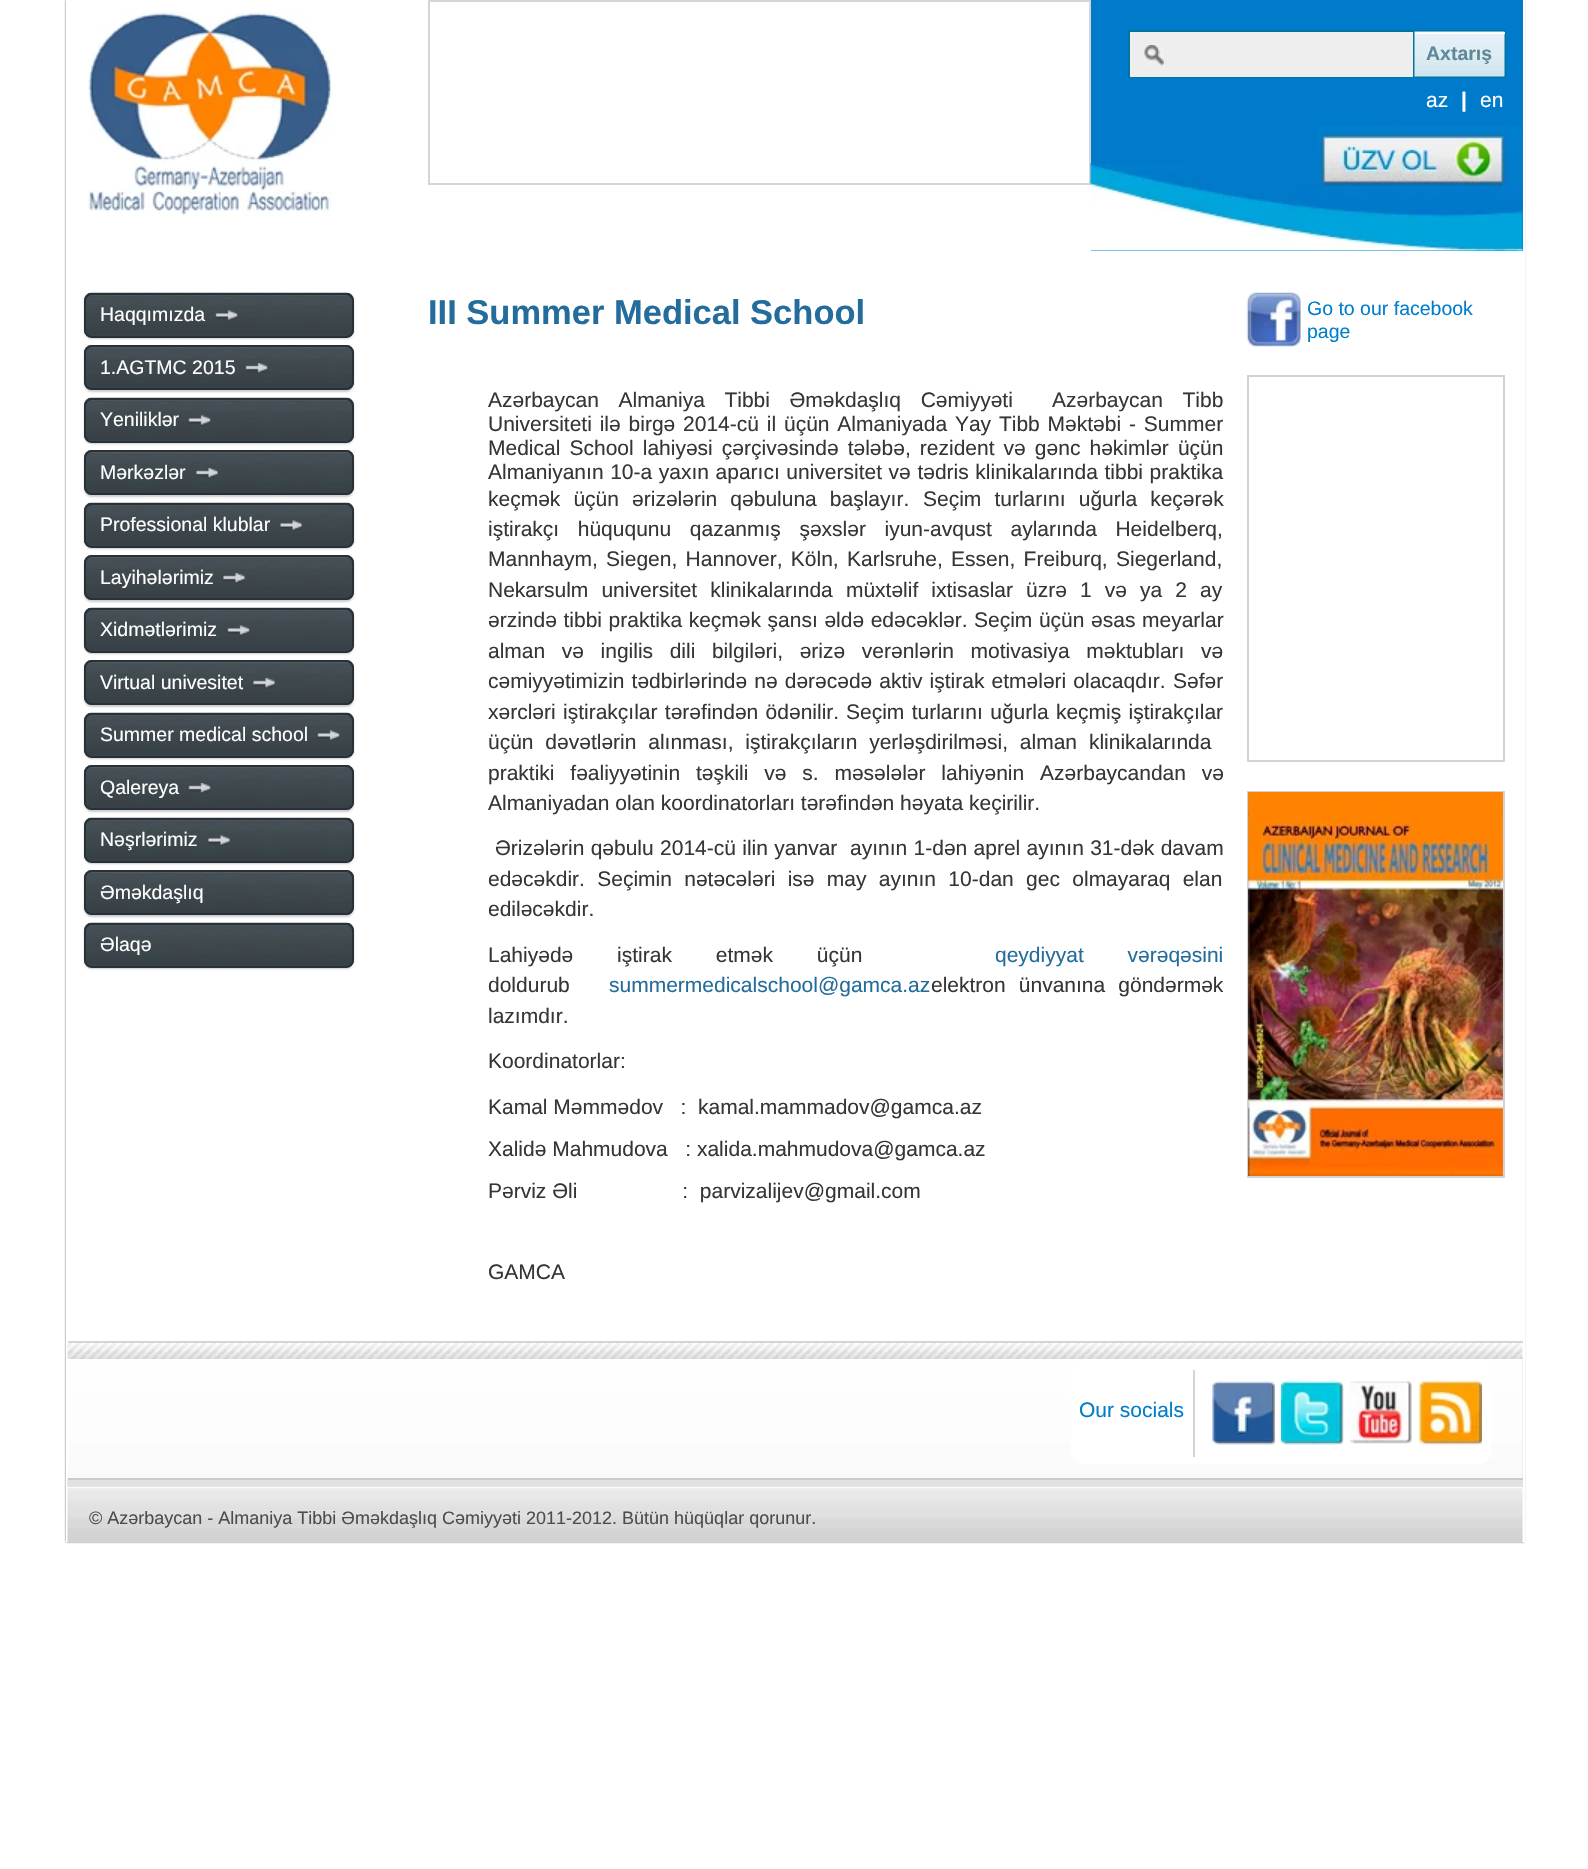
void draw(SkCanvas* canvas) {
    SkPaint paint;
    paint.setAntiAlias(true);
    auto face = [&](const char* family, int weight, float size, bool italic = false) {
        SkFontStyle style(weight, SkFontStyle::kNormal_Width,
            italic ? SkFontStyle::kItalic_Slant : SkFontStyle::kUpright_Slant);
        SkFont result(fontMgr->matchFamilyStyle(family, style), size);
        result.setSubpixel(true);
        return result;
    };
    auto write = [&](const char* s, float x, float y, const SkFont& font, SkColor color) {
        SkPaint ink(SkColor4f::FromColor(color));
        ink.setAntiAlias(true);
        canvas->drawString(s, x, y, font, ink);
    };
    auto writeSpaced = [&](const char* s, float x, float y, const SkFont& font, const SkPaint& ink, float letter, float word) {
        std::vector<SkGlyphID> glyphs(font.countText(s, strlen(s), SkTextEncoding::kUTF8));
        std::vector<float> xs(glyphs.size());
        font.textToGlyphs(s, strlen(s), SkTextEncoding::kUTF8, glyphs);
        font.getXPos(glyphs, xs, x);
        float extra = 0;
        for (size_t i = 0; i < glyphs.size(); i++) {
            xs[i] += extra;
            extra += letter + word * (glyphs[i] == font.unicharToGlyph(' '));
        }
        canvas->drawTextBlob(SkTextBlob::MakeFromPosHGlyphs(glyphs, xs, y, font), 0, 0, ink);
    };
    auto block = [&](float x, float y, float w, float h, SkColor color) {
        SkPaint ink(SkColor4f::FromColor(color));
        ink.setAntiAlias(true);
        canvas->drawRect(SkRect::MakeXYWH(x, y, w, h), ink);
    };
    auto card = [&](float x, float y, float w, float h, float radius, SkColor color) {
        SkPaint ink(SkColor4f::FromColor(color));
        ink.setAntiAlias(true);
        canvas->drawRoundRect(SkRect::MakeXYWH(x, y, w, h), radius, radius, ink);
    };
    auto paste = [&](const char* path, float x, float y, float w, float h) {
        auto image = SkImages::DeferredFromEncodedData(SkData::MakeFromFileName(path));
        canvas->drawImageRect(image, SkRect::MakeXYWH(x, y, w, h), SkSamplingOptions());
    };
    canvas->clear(SK_ColorWHITE);
    canvas->save();
    canvas->clipPath(SkPathBuilder(SkPathFillType::kEvenOdd).moveTo(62, 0).lineTo(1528, 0).lineTo(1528, 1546).lineTo(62, 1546).close().moveTo(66, 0).lineTo(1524, 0).lineTo(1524, 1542).lineTo(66, 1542).close().detach(), true);
    paint.setColor(SkColorSetRGB(102, 102, 102));
    paint.setMaskFilter(SkMaskFilter::MakeBlur(kNormal_SkBlurStyle, 1));
    canvas->drawRect(SkRect::MakeXYWH(66, 0, 1458, 1542), paint);
    paint.setMaskFilter(nullptr);
    canvas->restore();
    block(1524, 0, 1, 1542, SK_ColorWHITE);
    paste("pic1.png", 87, 12, 245, 204);
    paint.setStyle(SkPaint::kStroke_Style);
    paint.setStrokeWidth(2);
    paint.setColor(SkColorSetRGB(213, 213, 213));
    canvas->drawRect(SkRect::MakeXYWH(429, 1, 661, 183), paint);
    block(1091, 0, 432, 251, SkColorSetRGB(0, 122, 203));
    paste("pic2.png", 1090, 163, 433, 88);
    block(1128, 30, 378, 48, SkColorSetRGB(0, 117, 157));
    block(1130, 32, 283, 45, SkColorSetRGB(238, 238, 238));
    paste("pic3.png", 1144, 45, 20, 21);
    paste("pic4.png", 1414, 31, 91, 46);
    block(1415, 32, 90, 2, SK_ColorWHITE);
    auto kFont1 = face("Liberation Sans", 700, 19.5f);
    write("Axtarış", 1426, 60, kFont1, SkColorSetRGB(95, 136, 152));
    auto kFont2 = face("Liberation Sans", 400, 21);
    write("az", 1426, 107, kFont2, SK_ColorWHITE);
    auto kFont3 = face("Liberation Sans", 700, 21);
    write("|", 1461, 107, kFont3, SK_ColorWHITE);
    write("en", 1480, 107, kFont2, SK_ColorWHITE);
    paste("pic5.png", 1318, 126, 204, 72);
    paste("pic21.png", 67, 1342, 1456, 17);
    block(68, 1341, 1455, 2, SkColorSetRGB(213, 213, 213));
    paint.setStyle(SkPaint::kFill_Style);
    paint.setColor(SkColorSetARGB(51, 0, 0, 0));
    paint.setMaskFilter(SkMaskFilter::MakeBlur(kNormal_SkBlurStyle, 1));
    canvas->drawRoundRect(SkRect::MakeXYWH(84, 294, 270, 45), 8, 8, paint);
    paint.setMaskFilter(nullptr);
    paste("pic6.png", 84, 292, 270, 46);
    paint.setStyle(SkPaint::kStroke_Style);
    paint.setColor(SkColorSetRGB(39, 49, 55));
    canvas->drawRoundRect(SkRect::MakeXYWH(85, 294, 268, 43), 7, 7, paint);
    auto kFont4 = face("Liberation Sans", 400, 19.5f);
    write("Haqqımızda", 100, 321, kFont4, SK_ColorWHITE);
    paste("pic7.png", 215, 310, 23, 11);
    paint.setStyle(SkPaint::kFill_Style);
    paint.setColor(SkColorSetARGB(51, 0, 0, 0));
    paint.setMaskFilter(SkMaskFilter::MakeBlur(kNormal_SkBlurStyle, 1));
    canvas->drawRoundRect(SkRect::MakeXYWH(84, 347, 270, 45), 8, 8, paint);
    paint.setMaskFilter(nullptr);
    paste("pic8.png", 84, 345, 270, 45);
    paint.setStyle(SkPaint::kStroke_Style);
    paint.setColor(SkColorSetRGB(39, 49, 55));
    canvas->drawRoundRect(SkRect::MakeXYWH(85, 346, 268, 43), 7, 7, paint);
    write("1.AGTMC 2015", 100, 374, kFont4, SK_ColorWHITE);
    paste("pic9.png", 245, 363, 23, 11);
    paint.setStyle(SkPaint::kFill_Style);
    paint.setColor(SkColorSetARGB(51, 0, 0, 0));
    paint.setMaskFilter(SkMaskFilter::MakeBlur(kNormal_SkBlurStyle, 1));
    canvas->drawRoundRect(SkRect::MakeXYWH(84, 399, 270, 45), 8, 8, paint);
    paint.setMaskFilter(nullptr);
    paste("pic6.png", 84, 397, 270, 46);
    paint.setStyle(SkPaint::kStroke_Style);
    paint.setColor(SkColorSetRGB(39, 49, 55));
    canvas->drawRoundRect(SkRect::MakeXYWH(85, 399, 268, 43), 7, 7, paint);
    write("Yeniliklər", 100, 426, kFont4, SK_ColorWHITE);
    paste("pic10.png", 188, 415, 23, 11);
    paint.setStyle(SkPaint::kFill_Style);
    paint.setColor(SkColorSetARGB(51, 0, 0, 0));
    paint.setMaskFilter(SkMaskFilter::MakeBlur(kNormal_SkBlurStyle, 1));
    canvas->drawRoundRect(SkRect::MakeXYWH(84, 452, 270, 45), 8, 8, paint);
    paint.setMaskFilter(nullptr);
    paste("pic8.png", 84, 450, 270, 45);
    paint.setStyle(SkPaint::kStroke_Style);
    paint.setColor(SkColorSetRGB(39, 49, 55));
    canvas->drawRoundRect(SkRect::MakeXYWH(85, 451, 268, 43), 7, 7, paint);
    write("Mərkəzlər", 100, 479, kFont4, SK_ColorWHITE);
    paste("pic11.png", 196, 468, 22, 11);
    paint.setStyle(SkPaint::kFill_Style);
    paint.setColor(SkColorSetARGB(51, 0, 0, 0));
    paint.setMaskFilter(SkMaskFilter::MakeBlur(kNormal_SkBlurStyle, 1));
    canvas->drawRoundRect(SkRect::MakeXYWH(84, 504, 270, 45), 8, 8, paint);
    paint.setMaskFilter(nullptr);
    paste("pic12.png", 84, 502, 270, 46);
    paint.setStyle(SkPaint::kStroke_Style);
    paint.setColor(SkColorSetRGB(39, 49, 55));
    canvas->drawRoundRect(SkRect::MakeXYWH(85, 504, 268, 43), 7, 7, paint);
    write("Professional klublar", 100, 531, kFont4, SK_ColorWHITE);
    paste("pic13.png", 280, 520, 22, 11);
    paint.setStyle(SkPaint::kFill_Style);
    paint.setColor(SkColorSetARGB(51, 0, 0, 0));
    paint.setMaskFilter(SkMaskFilter::MakeBlur(kNormal_SkBlurStyle, 1));
    canvas->drawRoundRect(SkRect::MakeXYWH(84, 557, 270, 45), 8, 8, paint);
    paint.setMaskFilter(nullptr);
    paste("pic8.png", 84, 555, 270, 45);
    paint.setStyle(SkPaint::kStroke_Style);
    paint.setColor(SkColorSetRGB(39, 49, 55));
    canvas->drawRoundRect(SkRect::MakeXYWH(85, 556, 268, 43), 7, 7, paint);
    write("Layihələrimiz", 100, 584, kFont4, SK_ColorWHITE);
    paste("pic14.png", 223, 573, 22, 11);
    paint.setStyle(SkPaint::kFill_Style);
    paint.setColor(SkColorSetARGB(51, 0, 0, 0));
    paint.setMaskFilter(SkMaskFilter::MakeBlur(kNormal_SkBlurStyle, 1));
    canvas->drawRoundRect(SkRect::MakeXYWH(84, 609, 270, 45), 8, 8, paint);
    paint.setMaskFilter(nullptr);
    paste("pic6.png", 84, 607, 270, 46);
    paint.setStyle(SkPaint::kStroke_Style);
    paint.setColor(SkColorSetRGB(39, 49, 55));
    canvas->drawRoundRect(SkRect::MakeXYWH(85, 609, 268, 43), 7, 7, paint);
    write("Xidmətlərimiz", 100, 636, kFont4, SK_ColorWHITE);
    paste("pic15.png", 227, 625, 23, 11);
    paint.setStyle(SkPaint::kFill_Style);
    paint.setColor(SkColorSetARGB(51, 0, 0, 0));
    paint.setMaskFilter(SkMaskFilter::MakeBlur(kNormal_SkBlurStyle, 1));
    canvas->drawRoundRect(SkRect::MakeXYWH(84, 662, 270, 45), 8, 8, paint);
    paint.setMaskFilter(nullptr);
    paste("pic8.png", 84, 660, 270, 45);
    paint.setStyle(SkPaint::kStroke_Style);
    paint.setColor(SkColorSetRGB(39, 49, 55));
    canvas->drawRoundRect(SkRect::MakeXYWH(85, 661, 268, 43), 7, 7, paint);
    write("Virtual univesitet", 100, 689, kFont4, SK_ColorWHITE);
    paste("pic16.png", 253, 678, 22, 11);
    paint.setStyle(SkPaint::kFill_Style);
    paint.setColor(SkColorSetARGB(51, 0, 0, 0));
    paint.setMaskFilter(SkMaskFilter::MakeBlur(kNormal_SkBlurStyle, 1));
    canvas->drawRoundRect(SkRect::MakeXYWH(84, 714, 270, 45), 8, 8, paint);
    paint.setMaskFilter(nullptr);
    paste("pic6.png", 84, 712, 270, 46);
    paint.setStyle(SkPaint::kStroke_Style);
    paint.setColor(SkColorSetRGB(39, 49, 55));
    canvas->drawRoundRect(SkRect::MakeXYWH(85, 714, 268, 43), 7, 7, paint);
    write("Summer medical school", 100, 741, kFont4, SK_ColorWHITE);
    paste("pic10.png", 317, 730, 23, 11);
    paint.setStyle(SkPaint::kFill_Style);
    paint.setColor(SkColorSetARGB(51, 0, 0, 0));
    paint.setMaskFilter(SkMaskFilter::MakeBlur(kNormal_SkBlurStyle, 1));
    canvas->drawRoundRect(SkRect::MakeXYWH(84, 767, 270, 45), 8, 8, paint);
    paint.setMaskFilter(nullptr);
    paste("pic8.png", 84, 765, 270, 45);
    paint.setStyle(SkPaint::kStroke_Style);
    paint.setColor(SkColorSetRGB(39, 49, 55));
    canvas->drawRoundRect(SkRect::MakeXYWH(85, 766, 268, 43), 7, 7, paint);
    write("Qalereya", 100, 794, kFont4, SK_ColorWHITE);
    paste("pic17.png", 188, 783, 23, 11);
    paint.setStyle(SkPaint::kFill_Style);
    paint.setColor(SkColorSetARGB(51, 0, 0, 0));
    paint.setMaskFilter(SkMaskFilter::MakeBlur(kNormal_SkBlurStyle, 1));
    canvas->drawRoundRect(SkRect::MakeXYWH(84, 819, 270, 45), 8, 8, paint);
    paint.setMaskFilter(nullptr);
    paste("pic6.png", 84, 817, 270, 46);
    paint.setStyle(SkPaint::kStroke_Style);
    paint.setColor(SkColorSetRGB(39, 49, 55));
    canvas->drawRoundRect(SkRect::MakeXYWH(85, 819, 268, 43), 7, 7, paint);
    write("Nəşrlərimiz", 100, 846, kFont4, SK_ColorWHITE);
    paste("pic18.png", 208, 835, 22, 11);
    paint.setStyle(SkPaint::kFill_Style);
    paint.setColor(SkColorSetARGB(51, 0, 0, 0));
    paint.setMaskFilter(SkMaskFilter::MakeBlur(kNormal_SkBlurStyle, 1));
    canvas->drawRoundRect(SkRect::MakeXYWH(84, 872, 270, 45), 8, 8, paint);
    paint.setMaskFilter(nullptr);
    paste("pic8.png", 84, 870, 270, 45);
    paint.setStyle(SkPaint::kStroke_Style);
    paint.setColor(SkColorSetRGB(39, 49, 55));
    canvas->drawRoundRect(SkRect::MakeXYWH(85, 871, 268, 43), 7, 7, paint);
    write("Əməkdaşlıq", 100, 899, kFont4, SK_ColorWHITE);
    paint.setStyle(SkPaint::kFill_Style);
    paint.setColor(SkColorSetARGB(51, 0, 0, 0));
    paint.setMaskFilter(SkMaskFilter::MakeBlur(kNormal_SkBlurStyle, 1));
    canvas->drawRoundRect(SkRect::MakeXYWH(84, 924, 270, 45), 8, 8, paint);
    paint.setMaskFilter(nullptr);
    paste("pic6.png", 84, 922, 270, 46);
    paint.setStyle(SkPaint::kStroke_Style);
    paint.setColor(SkColorSetRGB(39, 49, 55));
    canvas->drawRoundRect(SkRect::MakeXYWH(85, 924, 268, 43), 7, 7, paint);
    write("Əlaqə", 100, 951, kFont4, SK_ColorWHITE);
    auto kFont5 = face("Liberation Sans", 700, 34.5f);
    write("III Summer Medical School", 428, 324, kFont5, SkColorSetRGB(35, 108, 155));
    paint.setStyle(SkPaint::kFill_Style);
    paint.setColor(SkColorSetRGB(54, 54, 54));
    writeSpaced("Azərbaycan Almaniya Tibbi Əməkdaşlıq Cəmiyyəti  Azərbaycan Tibb", 488, 407, kFont2, paint, 0, 13.75f);
    writeSpaced("Universiteti ilə birgə 2014-cü il üçün Almaniyada Yay Tibb Məktəbi - Summer", 488, 431, kFont2, paint, 0, 2);
    writeSpaced("Medical School lahiyəsi çərçivəsində tələbə, rezident və gənc həkimlər üçün", 488, 455, kFont2, paint, 0, 3.25f);
    writeSpaced("Almaniyanın 10-a yaxın aparıcı universitet və tədris klinikalarında tibbi praktika", 488, 479, kFont2, paint, 0, 0.75f);
    writeSpaced("keçmək üçün ərizələrin qəbuluna başlayır.", 488, 506, kFont2, paint, 0, 7.25f);
    writeSpaced("Seçim turlarını uğurla keçərək", 923, 506, kFont2, paint, 0, 7.25f);
    writeSpaced("iştirakçı hüququnu qazanmış şəxslər iyun-avqust aylarında Heidelberq,", 488, 536, kFont2, paint, 0, 12.75f);
    writeSpaced("Mannhaym, Siegen, Hannover, Köln, Karlsruhe, Essen, Freiburq, Siegerland,", 488, 566, kFont2, paint, 0, 2.5f);
    writeSpaced("Nekarsulm universitet klinikalarında müxtəlif ixtisaslar üzrə 1 və ya 2 ay", 488, 597, kFont2, paint, 0, 7.25f);
    writeSpaced("ərzində tibbi praktika keçmək şansı əldə edəcəklər.", 488, 627, kFont2, paint, 0, 0.75f);
    writeSpaced("Seçim üçün əsas meyarlar", 974, 627, kFont2, paint, 0, 0.75f);
    writeSpaced("alman və ingilis dili bilgiləri, ərizə verənlərin motivasiya məktubları və", 488, 658, kFont2, paint, 0, 10.75f);
    writeSpaced("cəmiyyətimizin tədbirlərində nə dərəcədə aktiv iştirak etmələri olacaqdır.", 488, 688, kFont2, paint, 0, 1.25f);
    write("Səfər", 1173, 688, kFont2, SkColorSetRGB(54, 54, 54));
    writeSpaced("xərcləri iştirakçılar tərəfindən ödənilir.", 488, 719, kFont2, paint, 0, 1.5f);
    writeSpaced("Seçim turlarını uğurla keçmiş iştirakçılar", 846, 719, kFont2, paint, 0, 1.5f);
    writeSpaced("üçün dəvətlərin alınması, iştirakçıların yerləşdirilməsi, alman klinikalarında", 488, 749, kFont2, paint, 0, 6);
    writeSpaced("praktiki fəaliyyətinin təşkili və s. məsələlər lahiyənin Azərbaycandan və", 488, 780, kFont2, paint, 0, 10);
    write("Almaniyadan olan koordinatorları tərəfindən həyata keçirilir.", 488, 810, kFont2, SkColorSetRGB(54, 54, 54));
    writeSpaced("Ərizələrin qəbulu 2014-cü ilin yanvar  ayının 1-dən aprel ayının 31-dək davam", 495, 855, kFont2, paint, 0, 0.5f);
    writeSpaced("edəcəkdir. Seçimin nətəcələri isə may ayının 10-dan gec olmayaraq elan", 488, 886, kFont2, paint, 0, 6.5f);
    write("ediləcəkdir.", 488, 916, kFont2, SkColorSetRGB(54, 54, 54));
    writeSpaced("Lahiyədə iştirak etmək üçün", 488, 962, kFont2, paint, 0, 38);
    paint.setColor(SkColorSetRGB(35, 108, 155));
    writeSpaced("qeydiyyat vərəqəsini", 995, 962, kFont2, paint, 0, 38);
    write("doldurub", 488, 992, kFont2, SkColorSetRGB(54, 54, 54));
    write("summermedicalschool@gamca.az", 609, 992, kFont2, SkColorSetRGB(35, 108, 155));
    paint.setColor(SkColorSetRGB(54, 54, 54));
    writeSpaced("elektron ünvanına göndərmək", 931, 992, kFont2, paint, 0, 7.25f);
    write("lazımdır.", 488, 1023, kFont2, SkColorSetRGB(54, 54, 54));
    write("Koordinatorlar:", 488, 1068, kFont2, SkColorSetRGB(54, 54, 54));
    write("Kamal Məmmədov   :", 488, 1114, kFont2, SkColorSetRGB(54, 54, 54));
    write("kamal.mammadov@gamca.az", 698, 1114, kFont2, SkColorSetRGB(54, 54, 54));
    write("Xalidə Mahmudova   : xalida.mahmudova@gamca.az", 488, 1156, kFont2, SkColorSetRGB(54, 54, 54));
    write("Pərviz Əli                  :  parvizalijev@gmail.com", 488, 1198, kFont2, SkColorSetRGB(54, 54, 54));
    write("GAMCA", 488, 1279, kFont2, SkColorSetRGB(54, 54, 54));
    paste("pic19.png", 1246, 292, 55, 55);
    write("Go to our facebook", 1307, 315, kFont4, SkColorSetRGB(0, 125, 204));
    write("page", 1307, 338, kFont4, SkColorSetRGB(0, 125, 204));
    paint.setStyle(SkPaint::kStroke_Style);
    paint.setColor(SkColorSetRGB(209, 212, 212));
    canvas->drawRect(SkRect::MakeXYWH(1248, 376, 256, 385), paint);
    canvas->drawRect(SkRect::MakeXYWH(1248, 792, 256, 385), paint);
    paste("pic20.png", 1248, 792, 255, 384);
    block(1522, 1359, 1, 119, SkColorSetRGB(227, 227, 227));
    paste("pic22.png", 68, 1359, 1455, 119);
    paste("pic27.png", 67, 1479, 1456, 63);
    block(68, 1478, 1455, 2, SkColorSetRGB(200, 204, 207));
    card(1071, 1359, 420, 105, 12, SK_ColorWHITE);
    write("Our socials", 1079, 1417, kFont2, SkColorSetRGB(0, 125, 204));
    block(1193, 1370, 2, 87, SkColorSetRGB(213, 213, 213));
    paste("pic23.png", 1212, 1381, 63, 64);
    paste("pic24.png", 1281, 1381, 63, 64);
    paste("pic25.png", 1350, 1381, 62, 63);
    paste("pic26.png", 1419, 1381, 63, 64);
    block(68, 1480, 1455, 7, SkColorSetRGB(226, 226, 226));
    auto kFont6 = face("Liberation Sans", 400, 18);
    write("© Azərbaycan - Almaniya Tibbi Əməkdaşlıq Cəmiyyəti 2011-2012. Bütün hüqüqlar qorunur.", 89, 1524, kFont6, SkColorSetRGB(78, 77, 77));
}
